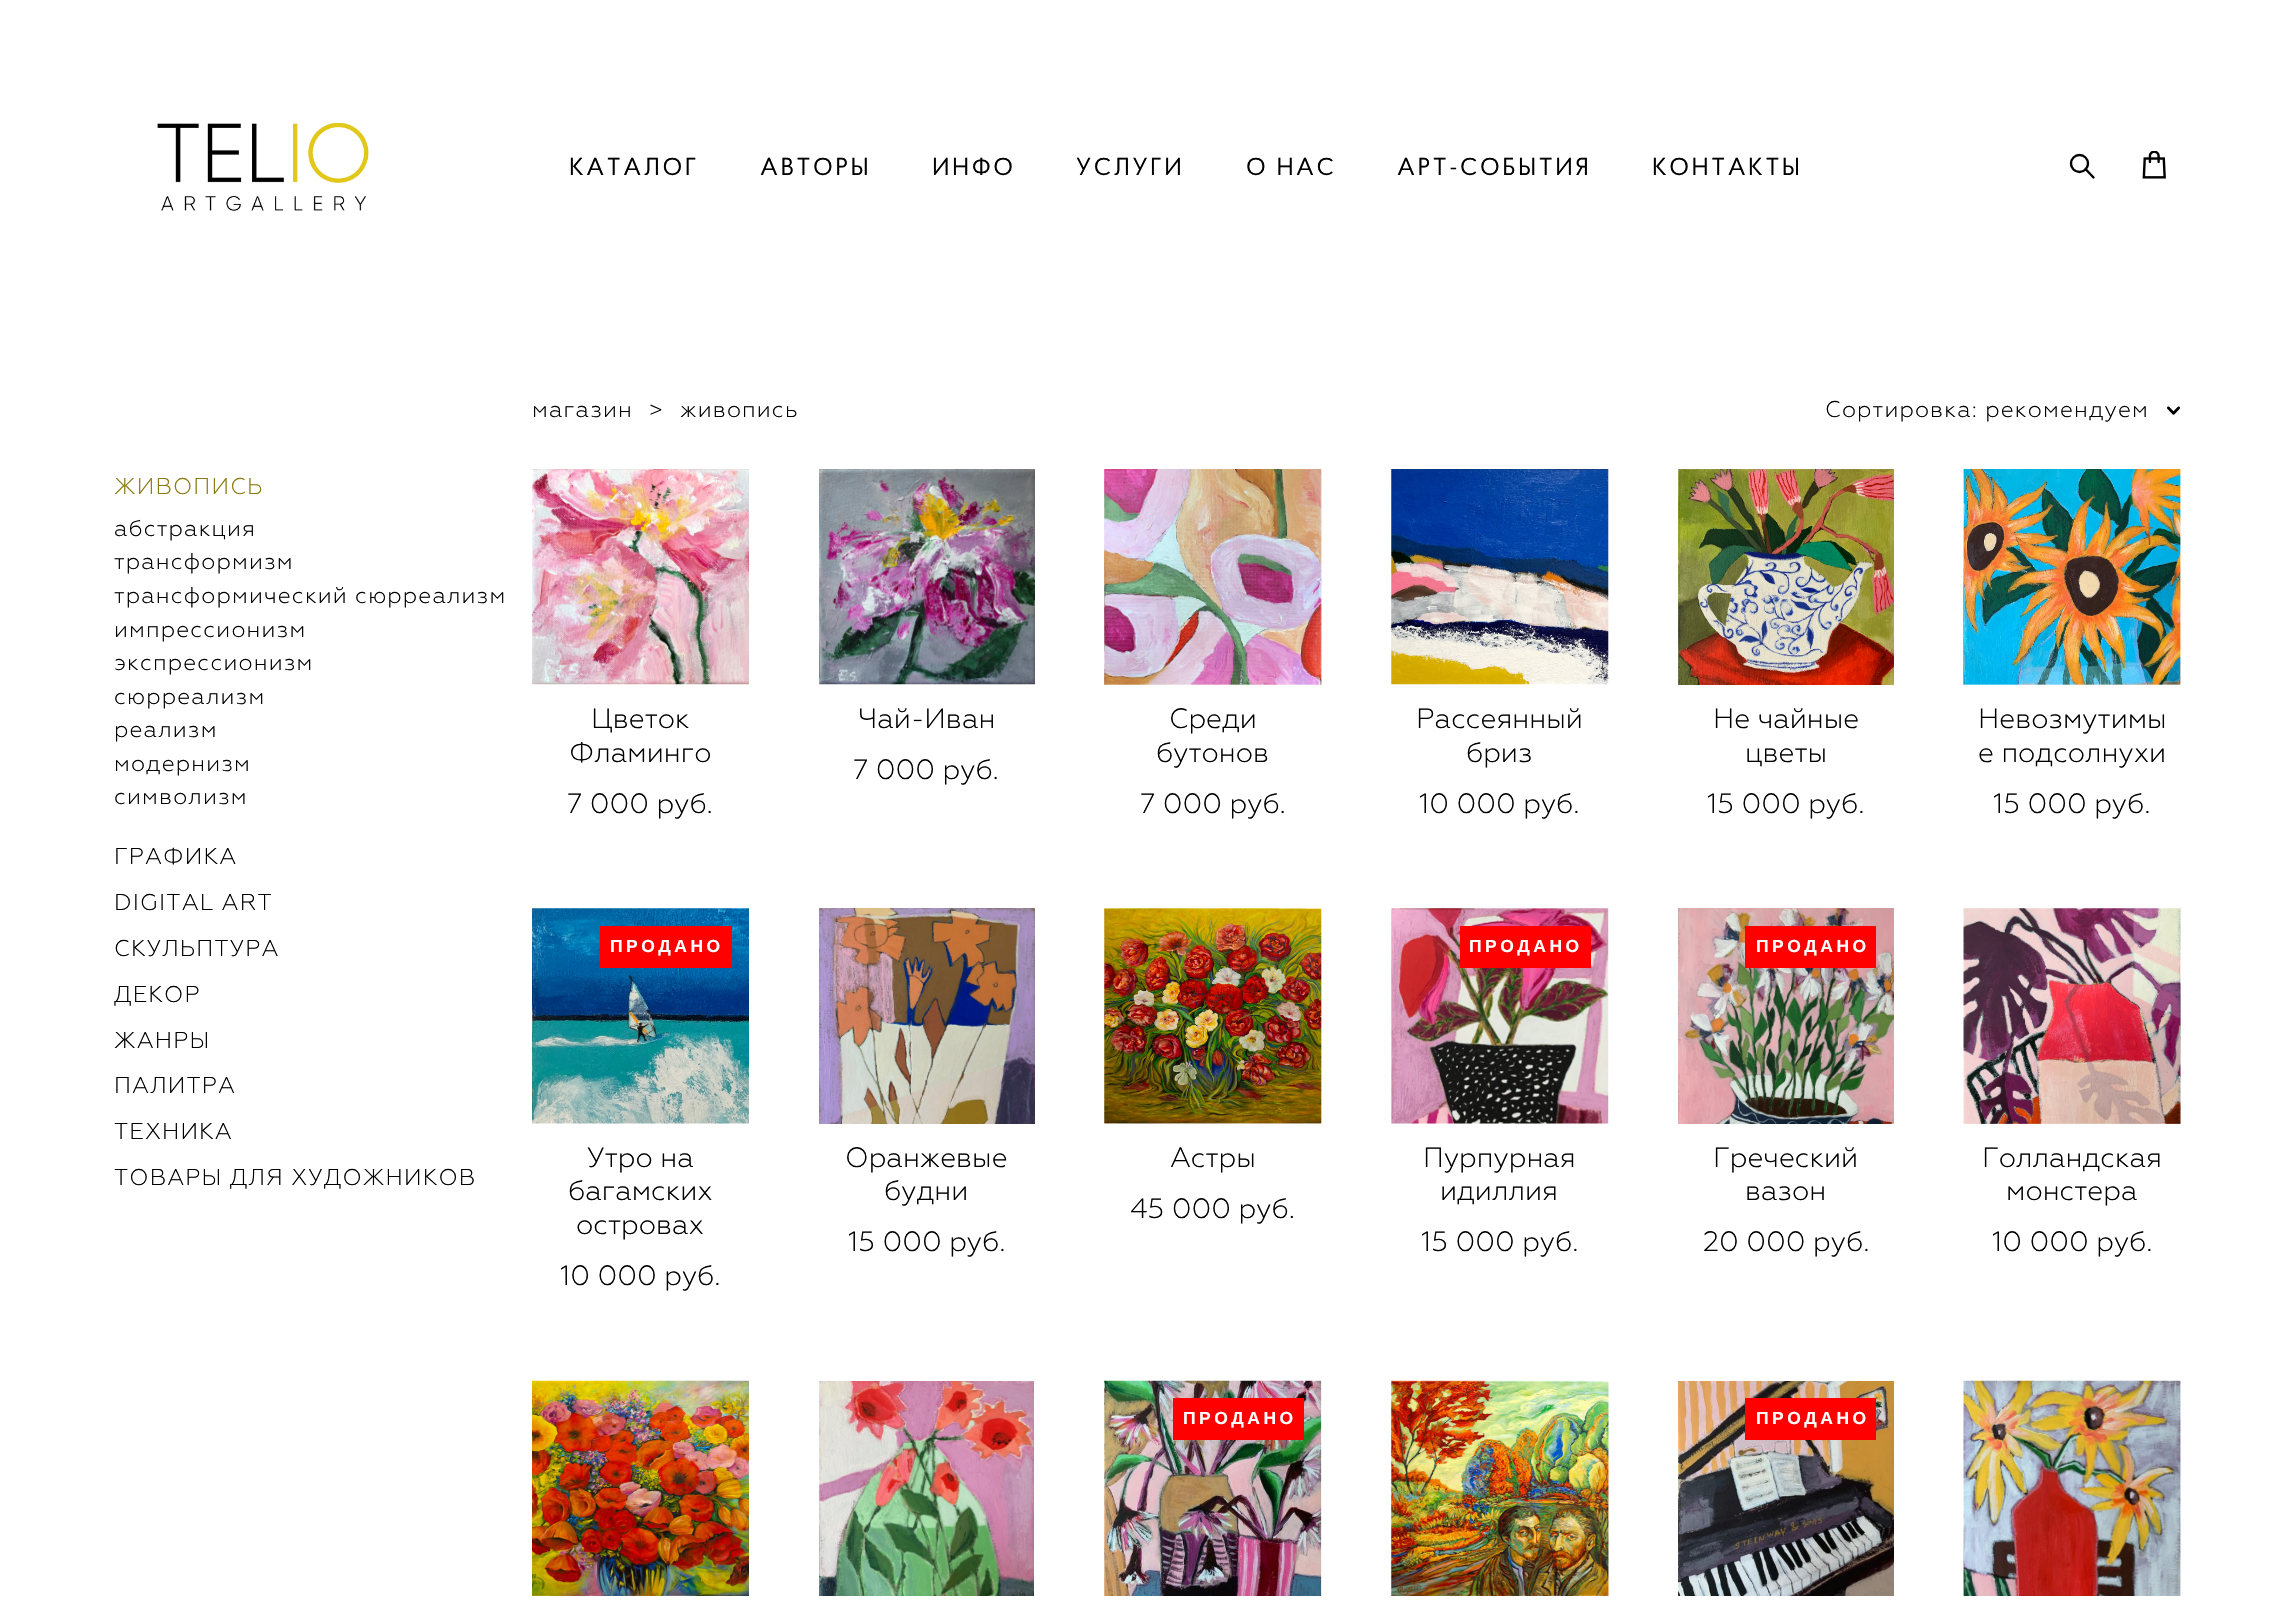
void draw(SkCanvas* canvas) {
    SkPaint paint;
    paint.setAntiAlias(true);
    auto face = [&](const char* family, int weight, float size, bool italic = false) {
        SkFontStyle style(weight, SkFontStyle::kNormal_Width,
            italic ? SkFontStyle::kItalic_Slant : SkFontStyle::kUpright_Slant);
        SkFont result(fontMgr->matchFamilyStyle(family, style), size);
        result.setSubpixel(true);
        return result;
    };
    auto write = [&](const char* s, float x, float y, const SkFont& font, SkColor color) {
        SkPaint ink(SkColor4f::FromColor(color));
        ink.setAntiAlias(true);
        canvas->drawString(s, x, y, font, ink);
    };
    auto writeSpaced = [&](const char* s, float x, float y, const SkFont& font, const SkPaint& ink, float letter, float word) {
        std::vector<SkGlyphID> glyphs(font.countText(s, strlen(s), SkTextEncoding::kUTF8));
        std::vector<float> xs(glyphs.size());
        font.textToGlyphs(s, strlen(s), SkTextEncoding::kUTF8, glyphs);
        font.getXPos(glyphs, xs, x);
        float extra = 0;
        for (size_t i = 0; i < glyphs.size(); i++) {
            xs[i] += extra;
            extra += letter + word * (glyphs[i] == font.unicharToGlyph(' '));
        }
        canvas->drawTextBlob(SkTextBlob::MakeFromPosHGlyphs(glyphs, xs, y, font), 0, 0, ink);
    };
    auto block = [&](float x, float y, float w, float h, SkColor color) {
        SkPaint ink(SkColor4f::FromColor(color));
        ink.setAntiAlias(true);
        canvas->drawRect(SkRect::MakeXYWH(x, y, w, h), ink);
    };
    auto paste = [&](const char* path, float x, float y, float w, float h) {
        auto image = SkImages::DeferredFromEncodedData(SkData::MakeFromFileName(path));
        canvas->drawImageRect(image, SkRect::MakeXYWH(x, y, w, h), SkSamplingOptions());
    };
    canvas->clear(SK_ColorWHITE);
    paste("pic1.png", 157, 123, 212, 88);
    auto kFont1 = face("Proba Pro", 400, 24.5f);
    paint.setColor(SK_ColorBLACK);
    writeSpaced("КАТАЛОГ", 569, 175, kFont1, paint, 2.5f, 0);
    writeSpaced("АВТОРЫ", 760, 175, kFont1, paint, 2.5f, 0);
    writeSpaced("ИНФО", 932, 175, kFont1, paint, 2.5f, 0);
    writeSpaced("УСЛУГИ", 1076, 175, kFont1, paint, 2.5f, 0);
    writeSpaced("О НАС", 1246, 175, kFont1, paint, 2.5f, 0);
    writeSpaced("АРТ-СОБЫТИЯ", 1397, 175, kFont1, paint, 2.5f, 0);
    writeSpaced("КОНТАКТЫ", 1652, 175, kFont1, paint, 2.5f, 0);
    paint.setStyle(SkPaint::kStroke_Style);
    paint.setStrokeWidth(2.4f);
    canvas->drawCircle(2079.5f, 163.5f, 8.5f, paint);
    paint.setStrokeCap(SkPaint::kRound_Cap);
    paint.setStrokeJoin(SkPaint::kRound_Join);
    canvas->drawPath(SkPathBuilder().moveTo(2085.5f, 169).lineTo(2093.5f, 177.5f).detach(), paint);
    paste("pic2.png", 2142, 151, 24, 28);
    auto kFont2 = face("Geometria", 300, 22.75f);
    paint.setStyle(SkPaint::kFill_Style);
    paint.setColor(SkColorSetRGB(138, 122, 18));
    writeSpaced("ЖИВОПИСЬ", 114, 494, kFont2, paint, 1.15f, 0);
    paint.setColor(SK_ColorBLACK);
    writeSpaced("абстракция", 114, 536, kFont2, paint, 1.15f, 0);
    writeSpaced("трансформизм", 114, 569, kFont2, paint, 1.15f, 0);
    writeSpaced("трансформический сюрреализм", 114, 603, kFont2, paint, 1.15f, 0);
    writeSpaced("импрессионизм", 114, 637, kFont2, paint, 1.15f, 0);
    writeSpaced("экспрессионизм", 114, 670, kFont2, paint, 1.15f, 0);
    writeSpaced("сюрреализм", 114, 704, kFont2, paint, 1.15f, 0);
    writeSpaced("реализм", 114, 737, kFont2, paint, 1.15f, 0);
    writeSpaced("модернизм", 114, 771, kFont2, paint, 1.15f, 0);
    writeSpaced("символизм", 114, 804, kFont2, paint, 1.15f, 0);
    writeSpaced("ГРАФИКА", 114, 864, kFont2, paint, 1.15f, 0);
    writeSpaced("DIGITAL ART", 114, 910, kFont2, paint, 1.15f, 0);
    writeSpaced("СКУЛЬПТУРА", 114, 956, kFont2, paint, 1.15f, 0);
    writeSpaced("ДЕКОР", 114, 1002, kFont2, paint, 1.15f, 0);
    writeSpaced("ЖАНРЫ", 114, 1048, kFont2, paint, 1.15f, 0);
    writeSpaced("ПАЛИТРА", 114, 1093, kFont2, paint, 1.15f, 0);
    writeSpaced("ТЕХНИКА", 114, 1139, kFont2, paint, 1.15f, 0);
    writeSpaced("ТОВАРЫ ДЛЯ ХУДОЖНИКОВ", 114, 1185, kFont2, paint, 1.15f, 0);
    writeSpaced("магазин", 532, 417, kFont2, paint, 1.15f, 0);
    writeSpaced(">", 649, 417, kFont2, paint, 1.15f, 0);
    writeSpaced("живопись", 680, 417, kFont2, paint, 1.15f, 0);
    writeSpaced("Сортировка: рекомендуем", 1825, 417, kFont2, paint, 1.15f, 0);
    paste("pic3.png", 2167, 406, 13, 9);
    paste("pic4.png", 532, 469, 217, 216);
    auto kFont3 = face("Geometria", 300, 28);
    write("Цветок", 591, 728, kFont3, SK_ColorBLACK);
    write("Фламинго", 569, 762, kFont3, SK_ColorBLACK);
    write("7 000 pуб.", 567, 813, kFont3, SK_ColorBLACK);
    paste("pic5.png", 819, 469, 216, 216);
    write("Чай-Иван", 858, 728, kFont3, SK_ColorBLACK);
    write("7 000 pуб.", 853, 779, kFont3, SK_ColorBLACK);
    paste("pic6.png", 1104, 469, 218, 216);
    write("Среди", 1169, 728, kFont3, SK_ColorBLACK);
    write("бутонов", 1156, 762, kFont3, SK_ColorBLACK);
    write("7 000 pуб.", 1140, 813, kFont3, SK_ColorBLACK);
    paste("pic7.png", 1391, 469, 218, 216);
    write("Рассеянный", 1416, 728, kFont3, SK_ColorBLACK);
    write("бриз", 1466, 762, kFont3, SK_ColorBLACK);
    write("10 000 pуб.", 1419, 813, kFont3, SK_ColorBLACK);
    paste("pic8.png", 1678, 469, 216, 216);
    write("Не чайные", 1713, 728, kFont3, SK_ColorBLACK);
    write("цветы", 1745, 762, kFont3, SK_ColorBLACK);
    write("15 000 pуб.", 1707, 813, kFont3, SK_ColorBLACK);
    paste("pic9.png", 1963, 469, 218, 216);
    write("Невозмутимы", 1978, 728, kFont3, SK_ColorBLACK);
    write("е подсолнухи", 1978, 762, kFont3, SK_ColorBLACK);
    write("15 000 pуб.", 1993, 813, kFont3, SK_ColorBLACK);
    paste("pic10.png", 532, 908, 217, 216);
    block(600, 926, 132, 42, SkColorSetRGB(255, 0, 0));
    auto kFont4 = face("Liberation Sans", 700, 17.5f);
    paint.setColor(SK_ColorWHITE);
    writeSpaced("ПРОДАНО", 610, 952, kFont4, paint, 3.5f, 0);
    write("Утро на", 587, 1167, kFont3, SK_ColorBLACK);
    write("багамских", 568, 1200, kFont3, SK_ColorBLACK);
    write("островах", 576, 1234, kFont3, SK_ColorBLACK);
    write("10 000 pуб.", 560, 1285, kFont3, SK_ColorBLACK);
    paste("pic11.png", 819, 908, 216, 216);
    write("Оранжевые", 845, 1167, kFont3, SK_ColorBLACK);
    write("будни", 884, 1200, kFont3, SK_ColorBLACK);
    write("15 000 pуб.", 848, 1251, kFont3, SK_ColorBLACK);
    paste("pic12.png", 1104, 908, 218, 216);
    write("Астры", 1170, 1167, kFont3, SK_ColorBLACK);
    write("45 000 pуб.", 1130, 1218, kFont3, SK_ColorBLACK);
    paste("pic13.png", 1391, 908, 218, 216);
    block(1460, 926, 131, 42, SkColorSetRGB(255, 0, 0));
    writeSpaced("ПРОДАНО", 1469, 952, kFont4, paint, 3.5f, 0);
    write("Пурпурная", 1423, 1167, kFont3, SK_ColorBLACK);
    write("идиллия", 1440, 1200, kFont3, SK_ColorBLACK);
    write("15 000 pуб.", 1421, 1251, kFont3, SK_ColorBLACK);
    paste("pic14.png", 1678, 908, 216, 216);
    block(1745, 926, 131, 42, SkColorSetRGB(255, 0, 0));
    writeSpaced("ПРОДАНО", 1756, 952, kFont4, paint, 3.5f, 0);
    write("Греческий", 1713, 1167, kFont3, SK_ColorBLACK);
    write("вазон", 1745, 1200, kFont3, SK_ColorBLACK);
    write("20 000 pуб.", 1703, 1251, kFont3, SK_ColorBLACK);
    paste("pic15.png", 1963, 908, 218, 216);
    write("Голландская", 1982, 1167, kFont3, SK_ColorBLACK);
    write("монстера", 2006, 1200, kFont3, SK_ColorBLACK);
    write("10 000 pуб.", 1992, 1251, kFont3, SK_ColorBLACK);
    paste("pic16.png", 532, 1380, 217, 216);
    paste("pic17.png", 819, 1381, 215, 215);
    paste("pic18.png", 1104, 1380, 218, 216);
    block(1173, 1398, 131, 42, SkColorSetRGB(255, 0, 0));
    writeSpaced("ПРОДАНО", 1183, 1424, kFont4, paint, 3.5f, 0);
    paste("pic19.png", 1391, 1380, 218, 216);
    paste("pic20.png", 1678, 1381, 216, 215);
    block(1745, 1398, 131, 42, SkColorSetRGB(255, 0, 0));
    writeSpaced("ПРОДАНО", 1756, 1424, kFont4, paint, 3.5f, 0);
    paste("pic21.png", 1963, 1380, 218, 216);
}
